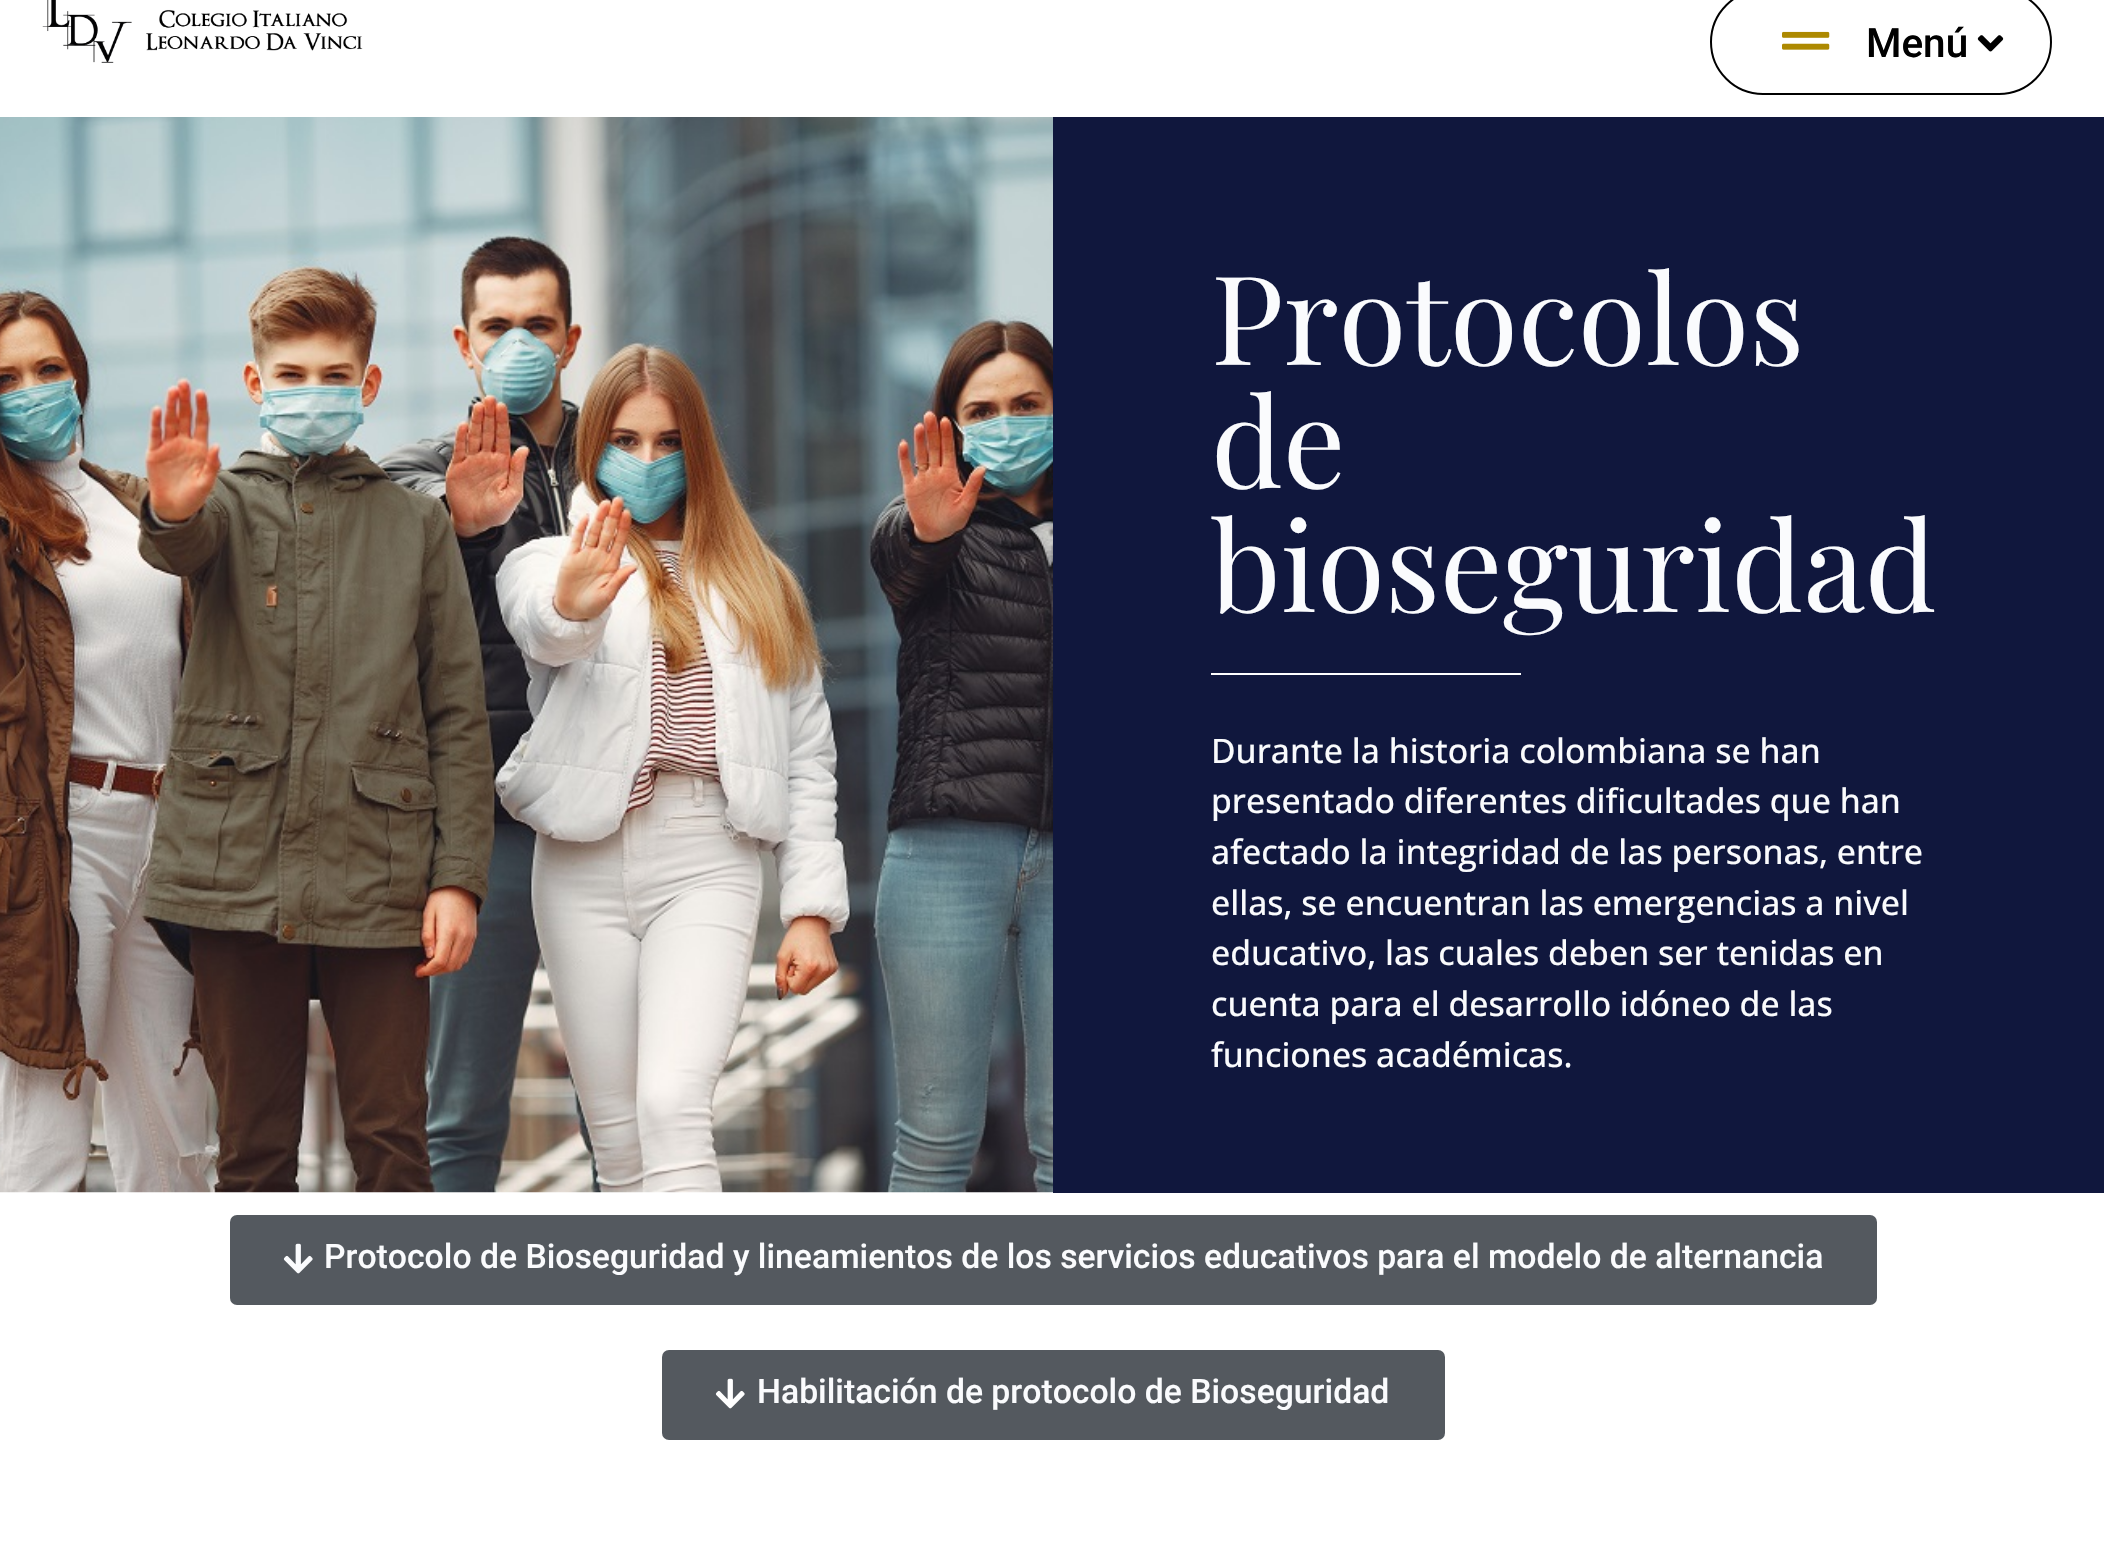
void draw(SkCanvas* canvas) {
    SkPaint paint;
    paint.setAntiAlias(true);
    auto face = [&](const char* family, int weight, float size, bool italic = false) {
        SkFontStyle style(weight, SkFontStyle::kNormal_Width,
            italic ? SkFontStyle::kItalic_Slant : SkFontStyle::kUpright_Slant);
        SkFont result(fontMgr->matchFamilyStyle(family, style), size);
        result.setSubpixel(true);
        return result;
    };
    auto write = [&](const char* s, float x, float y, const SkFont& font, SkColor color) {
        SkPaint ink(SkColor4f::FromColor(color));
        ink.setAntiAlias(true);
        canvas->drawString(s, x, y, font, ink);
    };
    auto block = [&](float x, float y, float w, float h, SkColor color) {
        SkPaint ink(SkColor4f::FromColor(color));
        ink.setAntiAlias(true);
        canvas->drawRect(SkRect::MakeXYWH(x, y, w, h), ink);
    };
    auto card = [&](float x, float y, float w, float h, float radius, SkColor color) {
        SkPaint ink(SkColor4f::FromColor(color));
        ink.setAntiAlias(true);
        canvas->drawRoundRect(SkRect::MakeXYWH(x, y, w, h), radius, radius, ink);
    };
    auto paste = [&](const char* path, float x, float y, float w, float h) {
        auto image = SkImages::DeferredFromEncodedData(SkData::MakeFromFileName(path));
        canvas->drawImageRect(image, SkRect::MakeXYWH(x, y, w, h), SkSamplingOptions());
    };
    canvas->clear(SK_ColorWHITE);
    paste("pic1.png", 42, 0, 321, 63);
    paint.setStyle(SkPaint::kStroke_Style);
    paint.setStrokeWidth(2);
    paint.setColor(SK_ColorBLACK);
    canvas->drawRoundRect(SkRect::MakeXYWH(1711, -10, 340, 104), 52, 52, paint);
    paste("pic2.png", 1782, 31, 48, 19);
    auto kFont1 = face("Roboto", 500, 40.5f);
    write("Menú", 1866, 57, kFont1, SK_ColorBLACK);
    paste("pic3.png", 1977, 35, 27, 17);
    paste("pic4.png", 0, 117, 1053, 1076);
    block(1053, 117, 1051, 1076, SkColorSetRGB(16, 23, 61));
    auto kFont2 = face("Playfair Display", 400, 123.75f);
    write("Protocolos", 1211, 365, kFont2, SkColorSetRGB(250, 251, 253));
    write("de", 1211, 488, kFont2, SkColorSetRGB(250, 251, 253));
    write("bioseguridad", 1211, 612, kFont2, SkColorSetRGB(250, 251, 253));
    block(1211, 673, 310, 2, SK_ColorWHITE);
    auto kFont3 = face("Open Sans", 500, 33.75f);
    write("Durante la historia colombiana se han", 1211, 763, kFont3, SkColorSetRGB(250, 251, 253));
    write("presentado diferentes dificultades que han", 1211, 813, kFont3, SkColorSetRGB(250, 251, 253));
    write("afectado la integridad de las personas, entre", 1211, 864, kFont3, SkColorSetRGB(250, 251, 253));
    write("ellas, se encuentran las emergencias a nivel", 1211, 915, kFont3, SkColorSetRGB(250, 251, 253));
    write("educativo, las cuales deben ser tenidas en", 1211, 965, kFont3, SkColorSetRGB(250, 251, 253));
    write("cuenta para el desarrollo idóneo de las", 1211, 1016, kFont3, SkColorSetRGB(250, 251, 253));
    write("funciones académicas.", 1211, 1067, kFont3, SkColorSetRGB(250, 251, 253));
    card(230, 1215, 1647, 90, 7, SkColorSetRGB(84, 89, 95));
    paste("pic5.png", 283, 1243, 30, 31);
    auto kFont4 = face("Roboto", 500, 33.75f);
    write("Protocolo de Bioseguridad y lineamientos de los servicios educativos para el modelo de alternancia", 324, 1268, kFont4, SkColorSetRGB(250, 251, 253));
    card(662, 1350, 783, 90, 7, SkColorSetRGB(84, 89, 95));
    paste("pic6.png", 715, 1378, 30, 31);
    write("Habilitación de protocolo de Bioseguridad", 757, 1403, kFont4, SkColorSetRGB(250, 251, 253));
}
